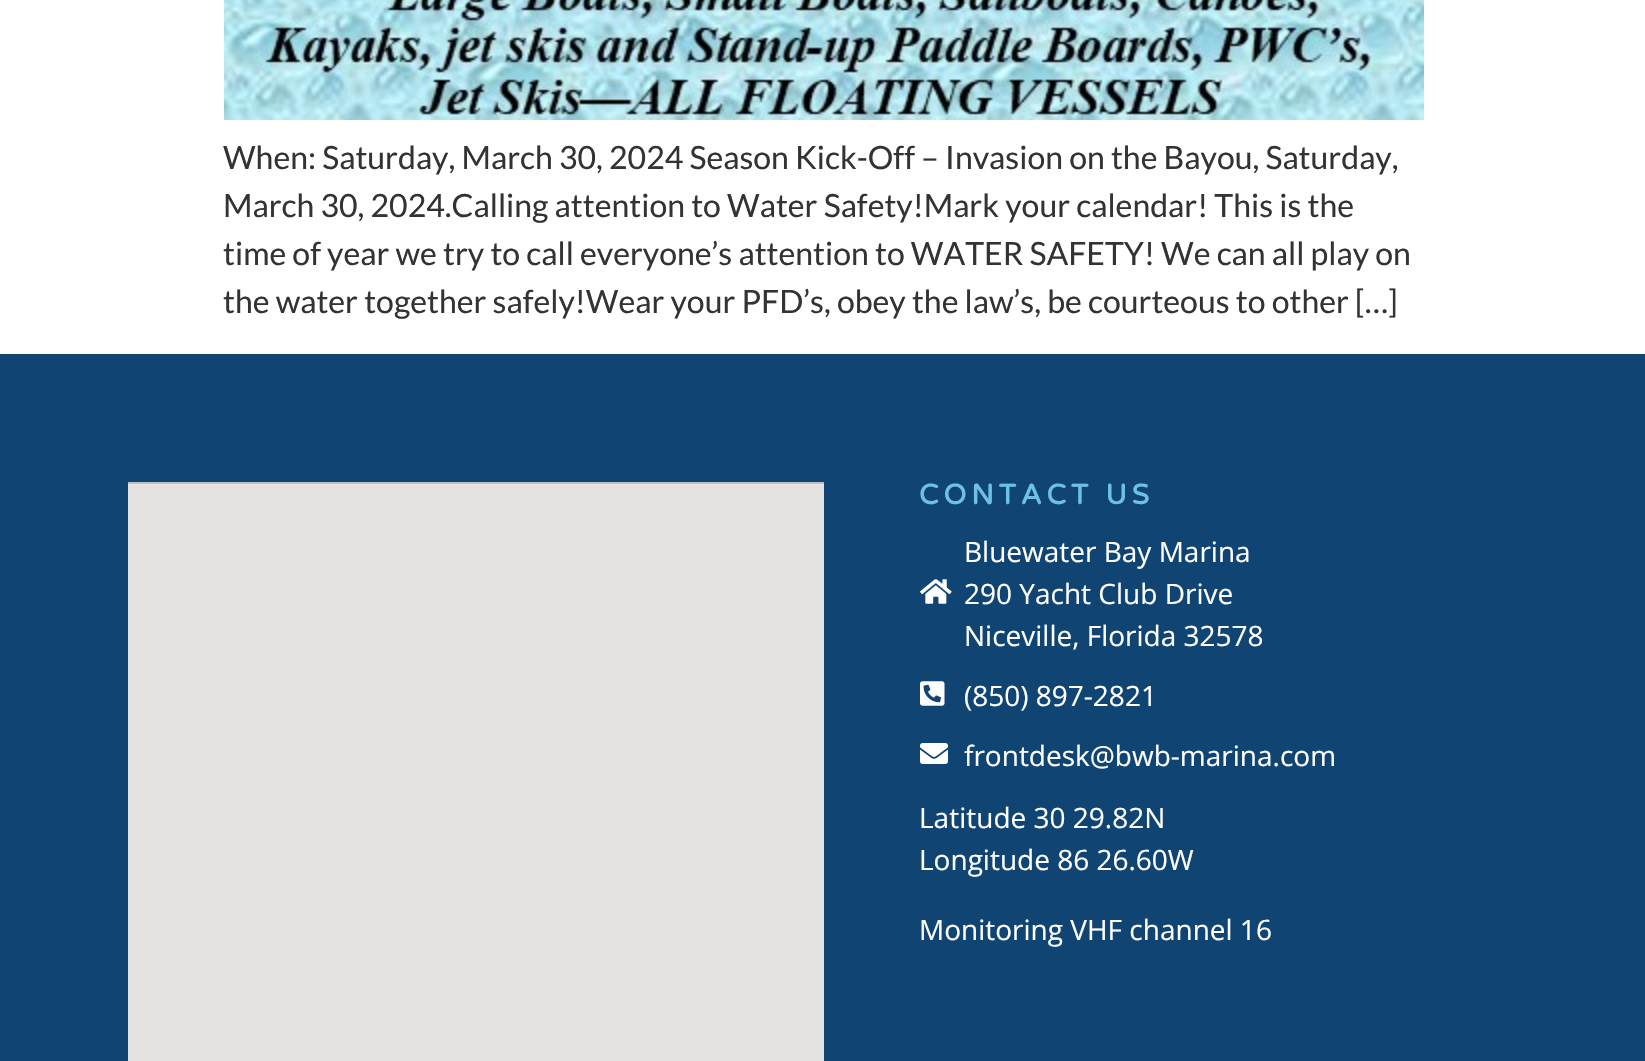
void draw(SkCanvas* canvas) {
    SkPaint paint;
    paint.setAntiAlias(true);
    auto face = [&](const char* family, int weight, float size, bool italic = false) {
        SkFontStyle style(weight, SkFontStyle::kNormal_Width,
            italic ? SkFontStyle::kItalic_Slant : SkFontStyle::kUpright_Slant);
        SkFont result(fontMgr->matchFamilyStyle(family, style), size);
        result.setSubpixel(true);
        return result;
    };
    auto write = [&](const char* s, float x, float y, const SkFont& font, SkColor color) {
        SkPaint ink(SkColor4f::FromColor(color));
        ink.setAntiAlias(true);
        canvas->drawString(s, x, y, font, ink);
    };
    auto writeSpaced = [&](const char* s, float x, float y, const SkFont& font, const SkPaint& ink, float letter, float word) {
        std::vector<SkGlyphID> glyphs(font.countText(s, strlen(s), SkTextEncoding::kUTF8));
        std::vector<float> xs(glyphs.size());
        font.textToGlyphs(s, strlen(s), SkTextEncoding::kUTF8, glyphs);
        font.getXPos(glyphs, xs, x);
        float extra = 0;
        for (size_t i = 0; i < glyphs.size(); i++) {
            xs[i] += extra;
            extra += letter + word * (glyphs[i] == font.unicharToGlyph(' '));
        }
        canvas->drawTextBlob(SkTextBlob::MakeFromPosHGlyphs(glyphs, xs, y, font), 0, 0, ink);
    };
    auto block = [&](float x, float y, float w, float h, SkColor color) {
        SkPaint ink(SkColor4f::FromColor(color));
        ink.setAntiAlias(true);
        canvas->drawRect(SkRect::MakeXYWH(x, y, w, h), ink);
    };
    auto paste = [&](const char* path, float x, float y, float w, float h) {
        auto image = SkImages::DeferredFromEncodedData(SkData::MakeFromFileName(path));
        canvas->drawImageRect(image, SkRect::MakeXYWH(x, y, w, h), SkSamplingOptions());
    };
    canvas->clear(SK_ColorWHITE);
    paste("pic1.png", 224, 0, 1200, 120);
    auto kFont1 = face("Lato", 400, 32);
    write("When: Saturday, March 30, 2024 Season Kick-Off – Invasion on the Bayou, Saturday,", 223, 169, kFont1, SkColorSetRGB(51, 51, 51));
    write("March 30, 2024.Calling attention to Water Safety!Mark your calendar! This is the", 223, 217, kFont1, SkColorSetRGB(51, 51, 51));
    write("time of year we try to call everyone’s attention to WATER SAFETY! We can all play on", 223, 265, kFont1, SkColorSetRGB(51, 51, 51));
    write("the water together safely!Wear your PFD’s, obey the law’s, be courteous to other […]", 223, 313, kFont1, SkColorSetRGB(51, 51, 51));
    block(0, 354, 1645, 707, SkColorSetRGB(15, 68, 115));
    paste("pic2.png", 128, 482, 696, 579);
    auto kFont2 = face("Varela Round", 700, 28);
    paint.setColor(SkColorSetRGB(110, 193, 228));
    writeSpaced("CONTACT US", 919, 504, kFont2, paint, 5, 0);
    paste("pic3.png", 920, 579, 32, 25);
    auto kFont3 = face("Open Sans", 400, 28);
    write("Bluewater Bay Marina", 964, 562, kFont3, SK_ColorWHITE);
    write("290 Yacht Club Drive", 964, 604, kFont3, SK_ColorWHITE);
    write("Niceville, Florida 32578", 964, 646, kFont3, SK_ColorWHITE);
    paste("pic4.png", 920, 681, 25, 25);
    write("(850) 897-2821", 964, 706, kFont3, SK_ColorWHITE);
    paste("pic5.png", 920, 743, 28, 21);
    write("frontdesk@bwb-marina.com", 964, 766, kFont3, SK_ColorWHITE);
    write("Latitude 30 29.82N", 919, 828, kFont3, SK_ColorWHITE);
    write("Longitude 86 26.60W", 919, 870, kFont3, SK_ColorWHITE);
    write("Monitoring VHF channel 16", 919, 940, kFont3, SK_ColorWHITE);
}
